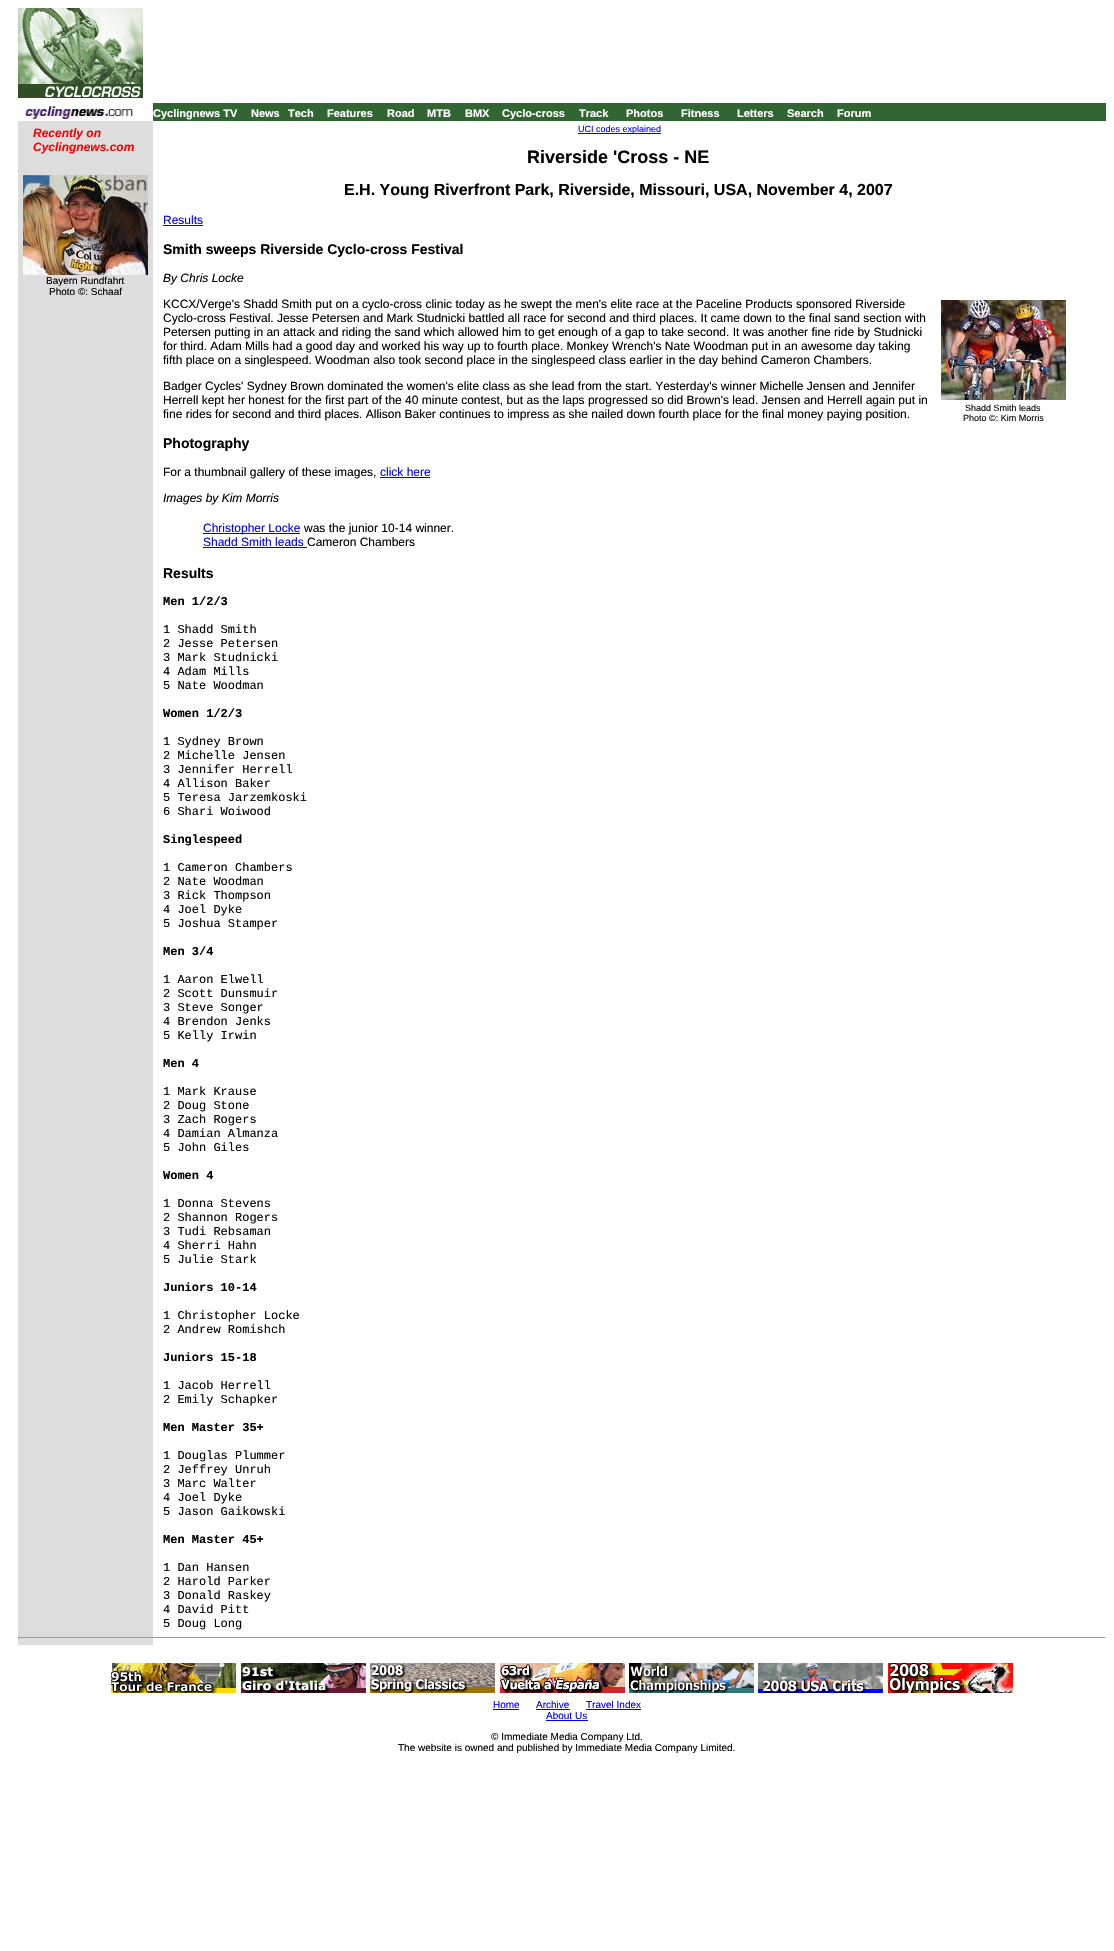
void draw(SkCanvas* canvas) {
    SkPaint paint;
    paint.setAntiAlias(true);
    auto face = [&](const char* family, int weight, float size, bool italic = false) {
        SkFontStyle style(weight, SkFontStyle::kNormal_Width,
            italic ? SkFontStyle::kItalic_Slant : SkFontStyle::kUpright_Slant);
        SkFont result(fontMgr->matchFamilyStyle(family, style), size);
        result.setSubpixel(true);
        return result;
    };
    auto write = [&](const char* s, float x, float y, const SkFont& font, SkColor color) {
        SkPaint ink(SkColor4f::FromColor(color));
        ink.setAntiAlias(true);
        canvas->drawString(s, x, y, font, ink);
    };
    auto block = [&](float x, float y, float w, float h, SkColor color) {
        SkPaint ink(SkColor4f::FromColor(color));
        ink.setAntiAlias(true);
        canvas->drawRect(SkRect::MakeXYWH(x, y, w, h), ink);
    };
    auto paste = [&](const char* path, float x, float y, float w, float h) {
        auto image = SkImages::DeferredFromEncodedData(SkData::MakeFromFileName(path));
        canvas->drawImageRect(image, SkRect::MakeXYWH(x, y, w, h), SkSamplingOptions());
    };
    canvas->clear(SK_ColorWHITE);
    paste("pic1.png", 18, 8, 125, 90);
    paste("pic2.png", 25, 106, 108, 13);
    block(153, 103, 953, 18, SkColorSetRGB(49, 101, 49));
    auto kFont1 = face("Liberation Sans", 700, 11);
    write("Cyclingnews TV", 153, 117, kFont1, SK_ColorWHITE);
    write("News", 251, 117, kFont1, SK_ColorWHITE);
    write("Tech", 288, 117, kFont1, SK_ColorWHITE);
    write("Features", 327, 117, kFont1, SK_ColorWHITE);
    write("Road", 387, 117, kFont1, SK_ColorWHITE);
    write("MTB", 427, 117, kFont1, SK_ColorWHITE);
    write("BMX", 465, 117, kFont1, SK_ColorWHITE);
    write("Cyclo-cross", 502, 117, kFont1, SK_ColorWHITE);
    write("Track", 579, 117, kFont1, SK_ColorWHITE);
    write("Photos", 626, 117, kFont1, SK_ColorWHITE);
    write("Fitness", 681, 117, kFont1, SK_ColorWHITE);
    write("Letters", 737, 117, kFont1, SK_ColorWHITE);
    write("Search", 787, 117, kFont1, SK_ColorWHITE);
    write("Forum", 837, 117, kFont1, SK_ColorWHITE);
    block(18, 121, 135, 1524, SkColorSetRGB(221, 221, 221));
    auto kFont2 = face("Liberation Sans", 700, 12, true);
    write("Recently on", 33, 137, kFont2, SkColorSetRGB(255, 0, 0));
    write("Cyclingnews.com", 33, 151, kFont2, SkColorSetRGB(255, 0, 0));
    paste("pic3.png", 23, 175, 125, 100);
    auto kFont3 = face("Liberation Sans", 400, 10);
    write("Bayern Rundfahrt", 46, 284, kFont3, SK_ColorBLACK);
    write("Photo ©: Schaaf", 49, 295, kFont3, SK_ColorBLACK);
    block(578, 133, 83, 1, SkColorSetRGB(0, 0, 255));
    auto kFont4 = face("Liberation Sans", 400, 9);
    write("UCI codes explained", 578, 132, kFont4, SkColorSetRGB(0, 0, 255));
    auto kFont5 = face("Liberation Sans", 700, 18);
    write("Riverside 'Cross - NE", 527, 163, kFont5, SK_ColorBLACK);
    auto kFont6 = face("Liberation Sans", 700, 16);
    write("E.H. Young Riverfront Park, Riverside, Missouri, USA, November 4, 2007", 344, 195, kFont6, SK_ColorBLACK);
    auto kFont7 = face("Liberation Sans", 400, 12);
    write("Results", 163, 224, kFont7, SkColorSetRGB(0, 0, 255));
    block(163, 225, 40, 1, SkColorSetRGB(0, 0, 255));
    auto kFont8 = face("Liberation Sans", 700, 14);
    write("Smith sweeps Riverside Cyclo-cross Festival", 163, 254, kFont8, SK_ColorBLACK);
    auto kFont9 = face("Liberation Sans", 400, 12, true);
    write("By Chris Locke", 163, 282, kFont9, SK_ColorBLACK);
    write("KCCX/Verge's Shadd Smith put on a cyclo-cross clinic today as he swept the men's elite race at the Paceline Products sponsored Riverside", 163, 308, kFont7, SK_ColorBLACK);
    write("Cyclo-cross Festival. Jesse Petersen and Mark Studnicki battled all race for second and third places. It came down to the final sand section with", 163, 322, kFont7, SK_ColorBLACK);
    write("Petersen putting in an attack and riding the sand which allowed him to get enough of a gap to take second. It was another fine ride by Studnicki", 163, 336, kFont7, SK_ColorBLACK);
    write("for third. Adam Mills had a good day and worked his way up to fourth place. Monkey Wrench's Nate Woodman put in an awesome day taking", 163, 350, kFont7, SK_ColorBLACK);
    write("fifth place on a singlespeed. Woodman also took second place in the singlespeed class earlier in the day behind Cameron Chambers.", 163, 364, kFont7, SK_ColorBLACK);
    write("Badger Cycles' Sydney Brown dominated the women's elite class as she lead from the start. Yesterday's winner Michelle Jensen and Jennifer", 163, 390, kFont7, SK_ColorBLACK);
    write("Herrell kept her honest for the first part of the 40 minute contest, but as the laps progressed so did Brown's lead. Jensen and Herrell again put in", 163, 404, kFont7, SK_ColorBLACK);
    write("fine rides for second and third places. Allison Baker continues to impress as she nailed down fourth place for the final money paying position.", 163, 418, kFont7, SK_ColorBLACK);
    paste("pic4.png", 941, 300, 125, 100);
    write("Shadd Smith leads", 965, 411, kFont4, SK_ColorBLACK);
    write("Photo ©: Kim Morris", 963, 421, kFont4, SK_ColorBLACK);
    write("Photography", 163, 448, kFont8, SK_ColorBLACK);
    write("For a thumbnail gallery of these images,", 163, 476, kFont7, SK_ColorBLACK);
    write("click here", 380, 476, kFont7, SkColorSetRGB(0, 0, 255));
    block(380, 477, 50, 1, SkColorSetRGB(0, 0, 255));
    write("Images by Kim Morris", 163, 502, kFont9, SK_ColorBLACK);
    block(203, 533, 97, 1, SkColorSetRGB(0, 0, 255));
    write("Christopher Locke", 203, 532, kFont7, SkColorSetRGB(0, 0, 255));
    write("was the junior 10-14 winner.", 304, 532, kFont7, SK_ColorBLACK);
    write("Shadd Smith leads", 203, 546, kFont7, SkColorSetRGB(0, 0, 255));
    block(203, 547, 104, 1, SkColorSetRGB(0, 0, 255));
    write("Cameron Chambers", 307, 546, kFont7, SK_ColorBLACK);
    write("Results", 163, 578, kFont8, SK_ColorBLACK);
    auto kFont10 = face("Liberation Mono", 700, 12);
    write("Men 1/2/3", 163, 605, kFont10, SK_ColorBLACK);
    auto kFont11 = face("Liberation Mono", 400, 12);
    write("1 Shadd Smith", 163, 633, kFont11, SK_ColorBLACK);
    write("2 Jesse Petersen", 163, 647, kFont11, SK_ColorBLACK);
    write("3 Mark Studnicki", 163, 661, kFont11, SK_ColorBLACK);
    write("4 Adam Mills", 163, 675, kFont11, SK_ColorBLACK);
    write("5 Nate Woodman", 163, 689, kFont11, SK_ColorBLACK);
    write("Women 1/2/3", 163, 717, kFont10, SK_ColorBLACK);
    write("1 Sydney Brown", 163, 745, kFont11, SK_ColorBLACK);
    write("2 Michelle Jensen", 163, 759, kFont11, SK_ColorBLACK);
    write("3 Jennifer Herrell", 163, 773, kFont11, SK_ColorBLACK);
    write("4 Allison Baker", 163, 787, kFont11, SK_ColorBLACK);
    write("5 Teresa Jarzemkoski", 163, 801, kFont11, SK_ColorBLACK);
    write("6 Shari Woiwood", 163, 815, kFont11, SK_ColorBLACK);
    write("Singlespeed", 163, 843, kFont10, SK_ColorBLACK);
    write("1 Cameron Chambers", 163, 871, kFont11, SK_ColorBLACK);
    write("2 Nate Woodman", 163, 885, kFont11, SK_ColorBLACK);
    write("3 Rick Thompson", 163, 899, kFont11, SK_ColorBLACK);
    write("4 Joel Dyke", 163, 913, kFont11, SK_ColorBLACK);
    write("5 Joshua Stamper", 163, 927, kFont11, SK_ColorBLACK);
    write("Men 3/4", 163, 955, kFont10, SK_ColorBLACK);
    write("1 Aaron Elwell", 163, 983, kFont11, SK_ColorBLACK);
    write("2 Scott Dunsmuir", 163, 997, kFont11, SK_ColorBLACK);
    write("3 Steve Songer", 163, 1011, kFont11, SK_ColorBLACK);
    write("4 Brendon Jenks", 163, 1025, kFont11, SK_ColorBLACK);
    write("5 Kelly Irwin", 163, 1039, kFont11, SK_ColorBLACK);
    write("Men 4", 163, 1067, kFont10, SK_ColorBLACK);
    write("1 Mark Krause", 163, 1095, kFont11, SK_ColorBLACK);
    write("2 Doug Stone", 163, 1109, kFont11, SK_ColorBLACK);
    write("3 Zach Rogers", 163, 1123, kFont11, SK_ColorBLACK);
    write("4 Damian Almanza", 163, 1137, kFont11, SK_ColorBLACK);
    write("5 John Giles", 163, 1151, kFont11, SK_ColorBLACK);
    write("Women 4", 163, 1179, kFont10, SK_ColorBLACK);
    write("1 Donna Stevens", 163, 1207, kFont11, SK_ColorBLACK);
    write("2 Shannon Rogers", 163, 1221, kFont11, SK_ColorBLACK);
    write("3 Tudi Rebsaman", 163, 1235, kFont11, SK_ColorBLACK);
    write("4 Sherri Hahn", 163, 1249, kFont11, SK_ColorBLACK);
    write("5 Julie Stark", 163, 1263, kFont11, SK_ColorBLACK);
    write("Juniors 10-14", 163, 1291, kFont10, SK_ColorBLACK);
    write("1 Christopher Locke", 163, 1319, kFont11, SK_ColorBLACK);
    write("2 Andrew Romishch", 163, 1333, kFont11, SK_ColorBLACK);
    write("Juniors 15-18", 163, 1361, kFont10, SK_ColorBLACK);
    write("1 Jacob Herrell", 163, 1389, kFont11, SK_ColorBLACK);
    write("2 Emily Schapker", 163, 1403, kFont11, SK_ColorBLACK);
    write("Men Master 35+", 163, 1431, kFont10, SK_ColorBLACK);
    write("1 Douglas Plummer", 163, 1459, kFont11, SK_ColorBLACK);
    write("2 Jeffrey Unruh", 163, 1473, kFont11, SK_ColorBLACK);
    write("3 Marc Walter", 163, 1487, kFont11, SK_ColorBLACK);
    write("4 Joel Dyke", 163, 1501, kFont11, SK_ColorBLACK);
    write("5 Jason Gaikowski", 163, 1515, kFont11, SK_ColorBLACK);
    write("Men Master 45+", 163, 1543, kFont10, SK_ColorBLACK);
    write("1 Dan Hansen", 163, 1571, kFont11, SK_ColorBLACK);
    write("2 Harold Parker", 163, 1585, kFont11, SK_ColorBLACK);
    write("3 Donald Raskey", 163, 1599, kFont11, SK_ColorBLACK);
    write("4 David Pitt", 163, 1613, kFont11, SK_ColorBLACK);
    write("5 Doug Long", 163, 1627, kFont11, SK_ColorBLACK);
    block(18, 1637, 1088, 1, SkColorSetRGB(159, 159, 159));
    block(1105, 1637, 1, 2, SkColorSetRGB(238, 238, 238));
    block(18, 1637, 1, 2, SkColorSetRGB(159, 159, 159));
    paste("pic5.png", 111, 1663, 125, 30);
    paste("pic6.png", 241, 1663, 125, 30);
    paste("pic7.png", 370, 1663, 125, 30);
    paste("pic8.png", 500, 1663, 125, 30);
    paste("pic9.png", 629, 1663, 125, 30);
    paste("pic10.png", 758, 1663, 125, 30);
    paste("pic11.png", 888, 1663, 125, 30);
    write("Home", 493, 1708, kFont3, SkColorSetRGB(0, 0, 255));
    block(493, 1709, 26, 1, SkColorSetRGB(0, 0, 255));
    write("Archive", 536, 1708, kFont3, SkColorSetRGB(0, 0, 255));
    block(536, 1709, 34, 1, SkColorSetRGB(0, 0, 255));
    write("Travel Index", 586, 1708, kFont3, SkColorSetRGB(0, 0, 255));
    block(586, 1709, 55, 1, SkColorSetRGB(0, 0, 255));
    write("About Us", 546, 1719, kFont3, SkColorSetRGB(0, 0, 255));
    block(546, 1720, 42, 1, SkColorSetRGB(0, 0, 255));
    write("© Immediate Media Company Ltd.", 491, 1740, kFont3, SK_ColorBLACK);
    write("The website is owned and published by Immediate Media Company Limited.", 398, 1751, kFont3, SK_ColorBLACK);
}
